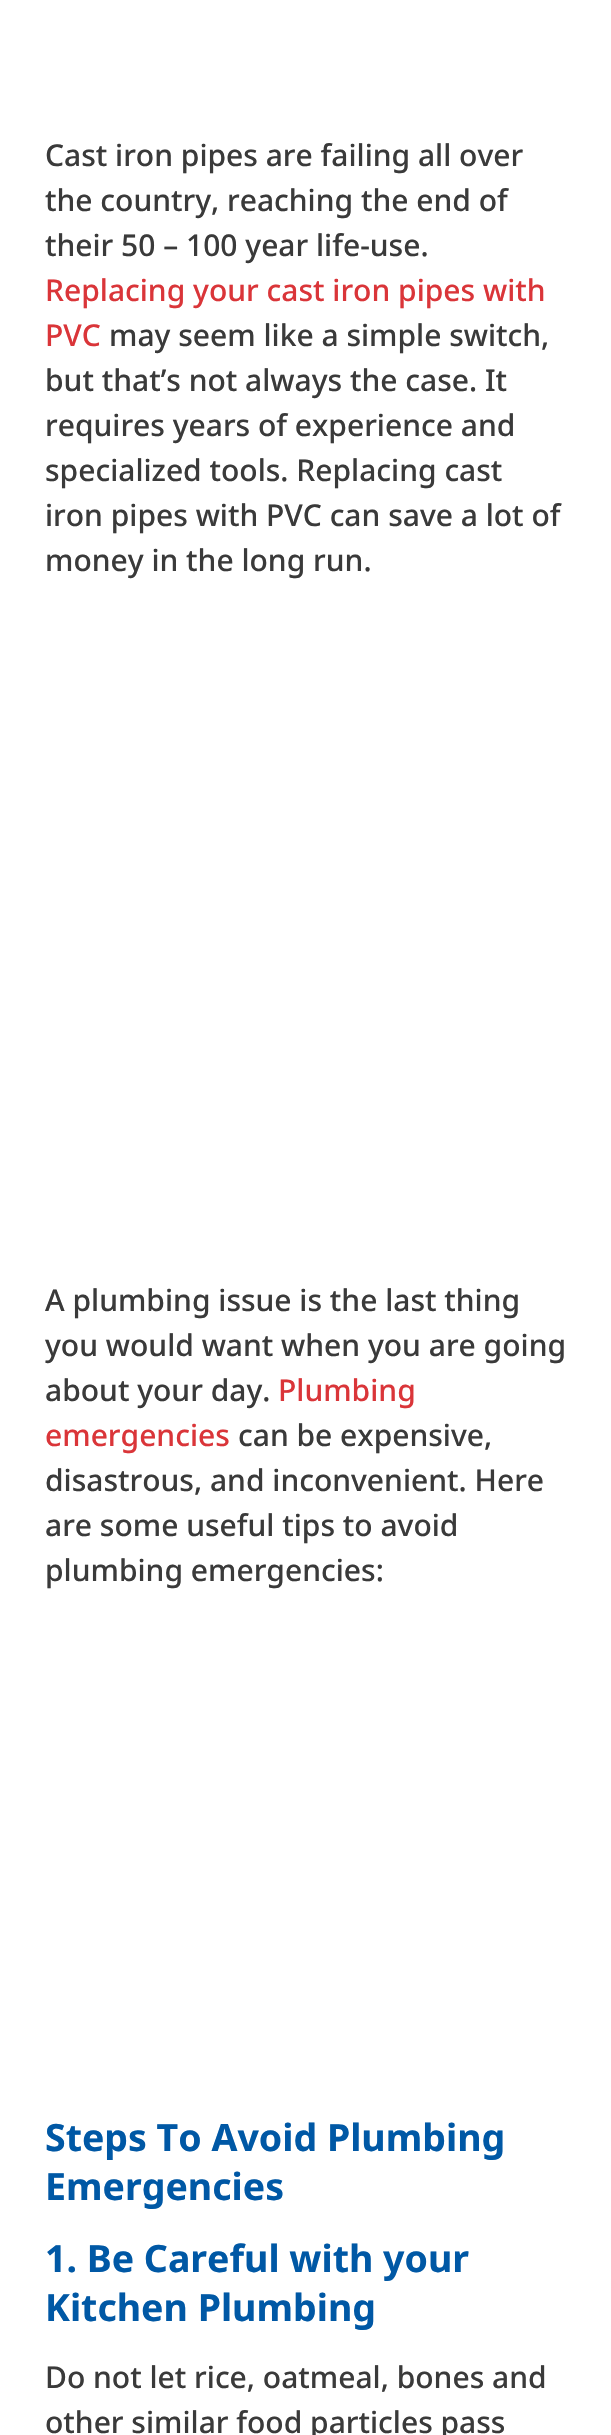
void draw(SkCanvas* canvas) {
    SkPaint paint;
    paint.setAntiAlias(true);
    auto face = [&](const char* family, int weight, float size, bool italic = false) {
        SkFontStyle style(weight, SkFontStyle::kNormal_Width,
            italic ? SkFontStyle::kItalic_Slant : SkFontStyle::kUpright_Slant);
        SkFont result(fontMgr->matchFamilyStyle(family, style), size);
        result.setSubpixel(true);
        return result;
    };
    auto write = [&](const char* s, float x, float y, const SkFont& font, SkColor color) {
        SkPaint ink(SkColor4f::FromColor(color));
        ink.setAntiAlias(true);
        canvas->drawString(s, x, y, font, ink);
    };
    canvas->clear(SK_ColorWHITE);
    auto kFont1 = face("Noto Sans", 500, 30);
    write("Cast iron pipes are failing all over", 45, 166, kFont1, SkColorSetRGB(58, 58, 58));
    write("the country, reaching the end of", 45, 211, kFont1, SkColorSetRGB(58, 58, 58));
    write("their 50 – 100 year life-use.", 45, 256, kFont1, SkColorSetRGB(58, 58, 58));
    write("Replacing your cast iron pipes with", 45, 301, kFont1, SkColorSetRGB(218, 53, 57));
    write("PVC", 45, 346, kFont1, SkColorSetRGB(218, 53, 57));
    write("may seem like a simple switch,", 109, 346, kFont1, SkColorSetRGB(58, 58, 58));
    write("but that’s not always the case. It", 45, 391, kFont1, SkColorSetRGB(58, 58, 58));
    write("requires years of experience and", 45, 436, kFont1, SkColorSetRGB(58, 58, 58));
    write("specialized tools. Replacing cast", 45, 481, kFont1, SkColorSetRGB(58, 58, 58));
    write("iron pipes with PVC can save a lot of", 45, 526, kFont1, SkColorSetRGB(58, 58, 58));
    write("money in the long run.", 45, 571, kFont1, SkColorSetRGB(58, 58, 58));
    write("A plumbing issue is the last thing", 45, 1311, kFont1, SkColorSetRGB(58, 58, 58));
    write("you would want when you are going", 45, 1356, kFont1, SkColorSetRGB(58, 58, 58));
    write("about your day.", 45, 1401, kFont1, SkColorSetRGB(58, 58, 58));
    write("Plumbing", 278, 1401, kFont1, SkColorSetRGB(218, 53, 57));
    write("emergencies", 45, 1446, kFont1, SkColorSetRGB(218, 53, 57));
    write("can be expensive,", 238, 1446, kFont1, SkColorSetRGB(58, 58, 58));
    write("disastrous, and inconvenient. Here", 45, 1491, kFont1, SkColorSetRGB(58, 58, 58));
    write("are some useful tips to avoid", 45, 1536, kFont1, SkColorSetRGB(58, 58, 58));
    write("plumbing emergencies:", 45, 1581, kFont1, SkColorSetRGB(58, 58, 58));
    auto kFont2 = face("Noto Sans", 700, 37.5f);
    write("Steps To Avoid Plumbing", 45, 2151, kFont2, SkColorSetRGB(0, 88, 165));
    write("Emergencies", 45, 2200, kFont2, SkColorSetRGB(0, 88, 165));
    write("1. Be Careful with your", 45, 2272, kFont2, SkColorSetRGB(0, 88, 165));
    write("Kitchen Plumbing", 45, 2321, kFont2, SkColorSetRGB(0, 88, 165));
    write("Do not let rice, oatmeal, bones and", 45, 2388, kFont1, SkColorSetRGB(58, 58, 58));
    write("other similar food particles pass", 45, 2433, kFont1, SkColorSetRGB(58, 58, 58));
}
